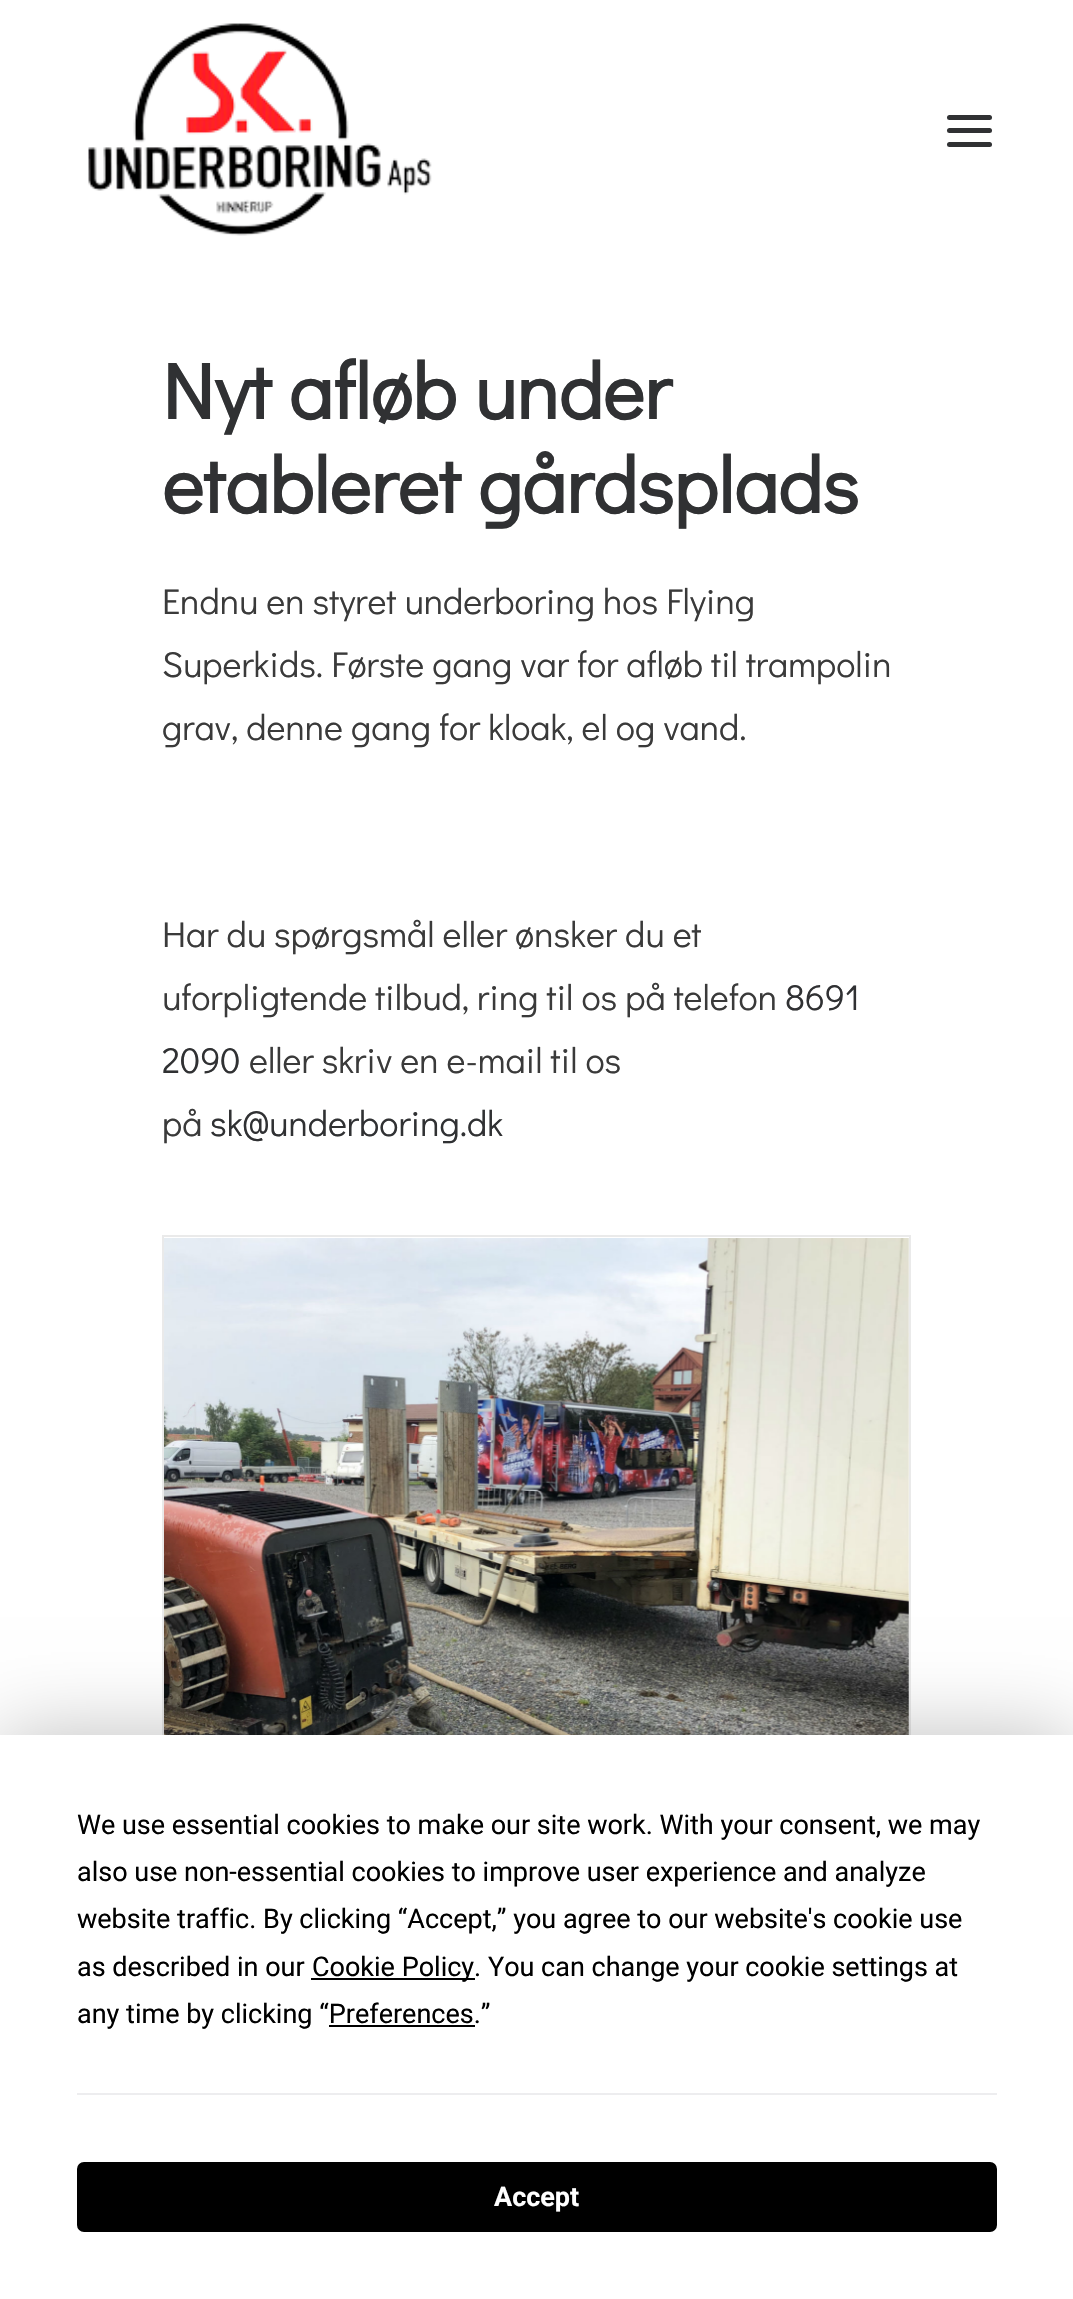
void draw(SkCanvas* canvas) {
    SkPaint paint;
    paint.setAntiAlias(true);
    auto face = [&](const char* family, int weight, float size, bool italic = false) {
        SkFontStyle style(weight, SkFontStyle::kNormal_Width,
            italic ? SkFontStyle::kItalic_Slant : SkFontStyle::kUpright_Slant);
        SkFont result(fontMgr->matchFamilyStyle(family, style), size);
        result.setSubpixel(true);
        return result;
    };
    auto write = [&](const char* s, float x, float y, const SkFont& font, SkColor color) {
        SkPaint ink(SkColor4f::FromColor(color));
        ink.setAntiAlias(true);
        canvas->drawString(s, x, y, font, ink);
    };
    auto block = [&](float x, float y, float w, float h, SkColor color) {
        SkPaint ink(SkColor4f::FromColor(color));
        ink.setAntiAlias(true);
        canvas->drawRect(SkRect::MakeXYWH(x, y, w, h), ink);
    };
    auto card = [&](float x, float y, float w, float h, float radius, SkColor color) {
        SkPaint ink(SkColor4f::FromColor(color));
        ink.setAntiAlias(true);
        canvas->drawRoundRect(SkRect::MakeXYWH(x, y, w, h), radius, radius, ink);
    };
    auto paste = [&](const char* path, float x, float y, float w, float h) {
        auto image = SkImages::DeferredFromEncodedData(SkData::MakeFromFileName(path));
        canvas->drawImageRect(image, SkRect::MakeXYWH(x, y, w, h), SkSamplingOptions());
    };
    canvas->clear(SK_ColorWHITE);
    paste("pic1.png", 88, 23, 344, 213);
    card(947, 128, 45, 5, 2.5f, SkColorSetRGB(48, 49, 51));
    card(947, 115, 45, 5, 2.5f, SkColorSetRGB(48, 49, 51));
    card(947, 142, 45, 5, 2.5f, SkColorSetRGB(48, 49, 51));
    auto kFont1 = face("Didact Gothic", 700, 78.75f);
    write("Nyt afløb under", 162, 419, kFont1, SkColorSetRGB(48, 49, 51));
    write("etableret gårdsplads", 162, 513, kFont1, SkColorSetRGB(48, 49, 51));
    auto kFont2 = face("Didact Gothic", 400, 36);
    write("Endnu en styret underboring hos Flying", 162, 614, kFont2, SkColorSetRGB(58, 58, 58));
    write("Superkids. Første gang var for afløb til trampolin", 162, 677, kFont2, SkColorSetRGB(58, 58, 58));
    write("grav, denne gang for kloak, el og vand.", 162, 740, kFont2, SkColorSetRGB(58, 58, 58));
    write("Har du spørgsmål eller ønsker du et", 162, 947, kFont2, SkColorSetRGB(58, 58, 58));
    write("uforpligtende tilbud, ring til os på telefon", 162, 1010, kFont2, SkColorSetRGB(58, 58, 58));
    write("8691", 785, 1010, kFont2, SkColorSetRGB(48, 49, 51));
    write("2090", 162, 1073, kFont2, SkColorSetRGB(48, 49, 51));
    write("eller skriv en e-mail til os", 249, 1073, kFont2, SkColorSetRGB(58, 58, 58));
    write("på", 162, 1136, kFont2, SkColorSetRGB(58, 58, 58));
    write("sk@underboring.dk", 210, 1136, kFont2, SkColorSetRGB(48, 49, 51));
    paint.setStyle(SkPaint::kStroke_Style);
    paint.setStrokeWidth(2);
    paint.setColor(SkColorSetRGB(234, 234, 234));
    canvas->drawRect(SkRect::MakeXYWH(163, 1236, 747, 556), paint);
    paste("pic2.png", 164, 1238, 745, 497);
    paint.setStyle(SkPaint::kFill_Style);
    paint.setColor(SkColorSetARGB(64, 0, 0, 0));
    paint.setMaskFilter(SkMaskFilter::MakeBlur(kNormal_SkBlurStyle, 39.5f));
    canvas->drawRect(SkRect::MakeXYWH(0, 1735, 1073, 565), paint);
    paint.setMaskFilter(nullptr);
    block(0, 1735, 1073, 564, SK_ColorWHITE);
    auto kFont3 = face("Roboto", 400, 27);
    write("We use essential cookies to make our site work. With your consent, we may", 77, 1834, kFont3, SK_ColorBLACK);
    write("also use non-essential cookies to improve user experience and analyze", 77, 1881, kFont3, SK_ColorBLACK);
    write("website traffic. By clicking “Accept,” you agree to our website's cookie use", 77, 1928, kFont3, SK_ColorBLACK);
    write("as described in our", 77, 1976, kFont3, SK_ColorBLACK);
    block(311, 1978, 164, 2, SK_ColorBLACK);
    write("Cookie Policy. You can change your cookie settings at", 312, 1976, kFont3, SK_ColorBLACK);
    write("any time by clicking “Preferences.”", 77, 2023, kFont3, SK_ColorBLACK);
    block(329, 2025, 146, 2, SK_ColorBLACK);
    block(77, 2093, 920, 2, SkColorSetRGB(237, 237, 239));
    paint.setColor(SK_ColorBLACK);
    canvas->drawRoundRect(SkRect::MakeXYWH(78, 2163, 918, 68), 6, 6, paint);
    paint.setStyle(SkPaint::kStroke_Style);
    canvas->drawRoundRect(SkRect::MakeXYWH(78, 2163, 918, 68), 6, 6, paint);
    auto kFont4 = face("Roboto", 700, 27);
    write("Accept", 494, 2206, kFont4, SK_ColorWHITE);
}
